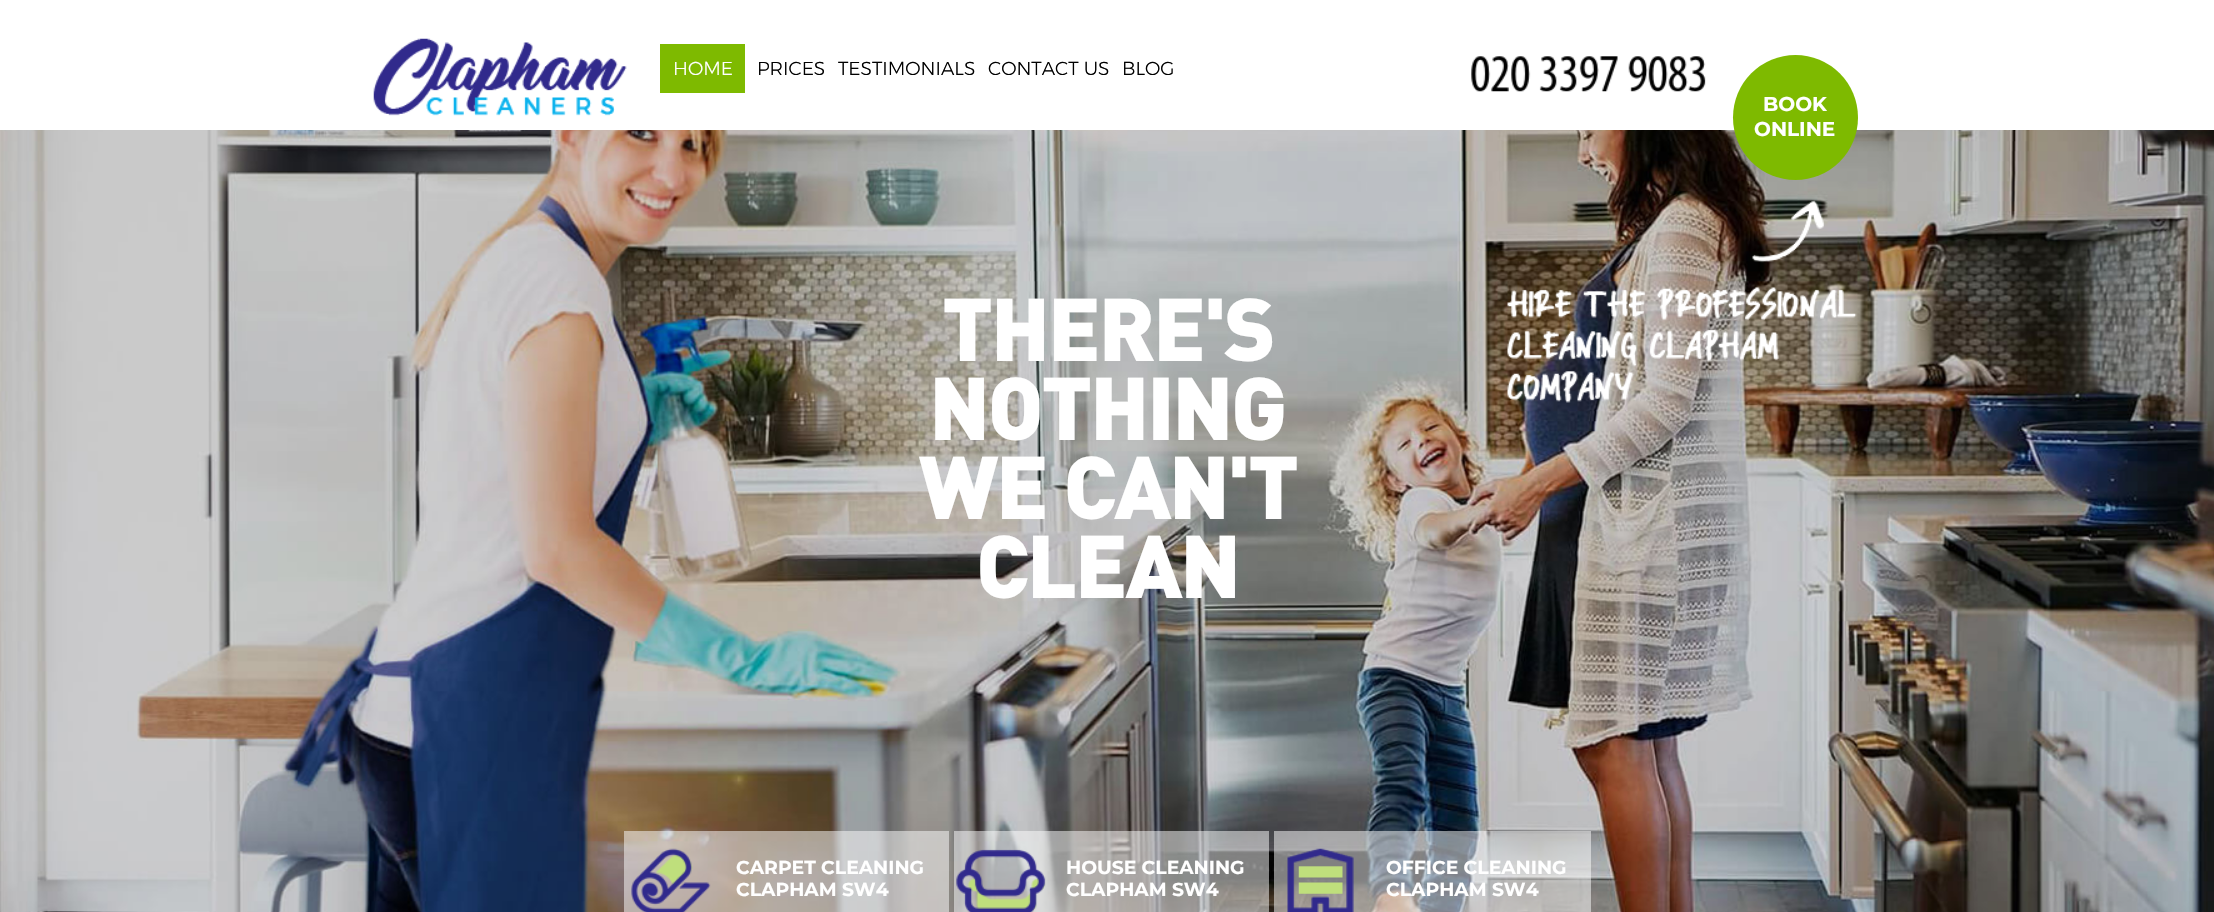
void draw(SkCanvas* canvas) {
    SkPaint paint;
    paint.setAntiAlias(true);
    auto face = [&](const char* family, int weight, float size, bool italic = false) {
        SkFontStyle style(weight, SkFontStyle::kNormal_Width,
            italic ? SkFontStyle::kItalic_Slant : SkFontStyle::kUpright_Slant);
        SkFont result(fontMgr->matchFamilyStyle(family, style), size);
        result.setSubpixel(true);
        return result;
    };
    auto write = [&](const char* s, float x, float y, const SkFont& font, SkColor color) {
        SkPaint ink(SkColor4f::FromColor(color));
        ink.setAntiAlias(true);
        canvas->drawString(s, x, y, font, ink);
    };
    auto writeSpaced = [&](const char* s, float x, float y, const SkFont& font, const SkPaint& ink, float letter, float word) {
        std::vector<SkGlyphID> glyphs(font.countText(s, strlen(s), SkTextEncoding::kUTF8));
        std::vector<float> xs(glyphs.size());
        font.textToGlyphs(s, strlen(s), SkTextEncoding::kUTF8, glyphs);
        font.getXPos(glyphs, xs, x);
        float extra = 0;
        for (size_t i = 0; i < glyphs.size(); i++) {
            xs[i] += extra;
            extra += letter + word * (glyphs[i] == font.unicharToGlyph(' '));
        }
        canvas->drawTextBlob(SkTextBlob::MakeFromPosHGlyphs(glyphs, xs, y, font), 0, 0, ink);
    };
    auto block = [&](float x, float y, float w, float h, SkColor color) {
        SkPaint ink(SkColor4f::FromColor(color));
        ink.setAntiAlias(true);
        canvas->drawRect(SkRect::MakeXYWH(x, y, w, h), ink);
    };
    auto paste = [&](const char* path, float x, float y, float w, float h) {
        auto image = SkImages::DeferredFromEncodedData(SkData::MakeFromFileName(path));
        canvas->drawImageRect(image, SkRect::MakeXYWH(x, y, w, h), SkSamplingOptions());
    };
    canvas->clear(SK_ColorWHITE);
    paste("pic1.png", 373, 38, 254, 78);
    block(660, 44, 85, 49, SkColorSetRGB(126, 186, 0));
    auto kFont1 = face("Montserrat", 300, 18.75f);
    write("HOME", 673, 75, kFont1, SK_ColorWHITE);
    write("PRICES", 757, 75, kFont1, SK_ColorBLACK);
    write("TESTIMONIALS", 838, 75, kFont1, SK_ColorBLACK);
    write("CONTACT US", 988, 75, kFont1, SK_ColorBLACK);
    write("BLOG", 1122, 75, kFont1, SK_ColorBLACK);
    paste("pic2.png", 1471, 56, 235, 36);
    paste("pic3.png", 0, 130, 2214, 782);
    paint.setColor(SkColorSetRGB(126, 186, 0));
    canvas->drawCircle(1795.5f, 117.5f, 62.5f, paint);
    auto kFont2 = face("Montserrat", 700, 20);
    write("BOOK", 1763, 111, kFont2, SK_ColorWHITE);
    write("ONLINE", 1754, 136, kFont2, SK_ColorWHITE);
    paste("pic4.png", 1507, 200, 350, 203);
    auto kFont3 = face("DIN", 900, 87.5f);
    paint.setColor(SK_ColorWHITE);
    writeSpaced("THERE'S", 942, 361, kFont3, paint, -2.5f, 0);
    writeSpaced("NOTHING", 929, 440, kFont3, paint, -2.5f, 0);
    writeSpaced("WE CAN'T", 919, 519, kFont3, paint, -2.5f, 0);
    writeSpaced("CLEAN", 976, 598, kFont3, paint, -2.5f, 0);
    block(624, 831, 325, 81, SkColorSetARGB(128, 255, 255, 255));
    paste("pic5.png", 631, 848, 80, 64);
    auto kFont4 = face("Montserrat", 700, 18.75f);
    write("CARPET CLEANING", 736, 874, kFont4, SK_ColorWHITE);
    write("CLAPHAM SW4", 736, 896, kFont4, SK_ColorWHITE);
    block(954, 831, 315, 81, SkColorSetARGB(128, 255, 255, 255));
    paste("pic6.png", 956, 849, 90, 63);
    write("HOUSE CLEANING", 1066, 874, kFont4, SK_ColorWHITE);
    write("CLAPHAM SW4", 1066, 896, kFont4, SK_ColorWHITE);
    block(1274, 831, 317, 81, SkColorSetARGB(128, 255, 255, 255));
    paste("pic7.png", 1287, 848, 67, 64);
    write("OFFICE CLEANING", 1386, 874, kFont4, SK_ColorWHITE);
    write("CLAPHAM SW4", 1386, 896, kFont4, SK_ColorWHITE);
}
